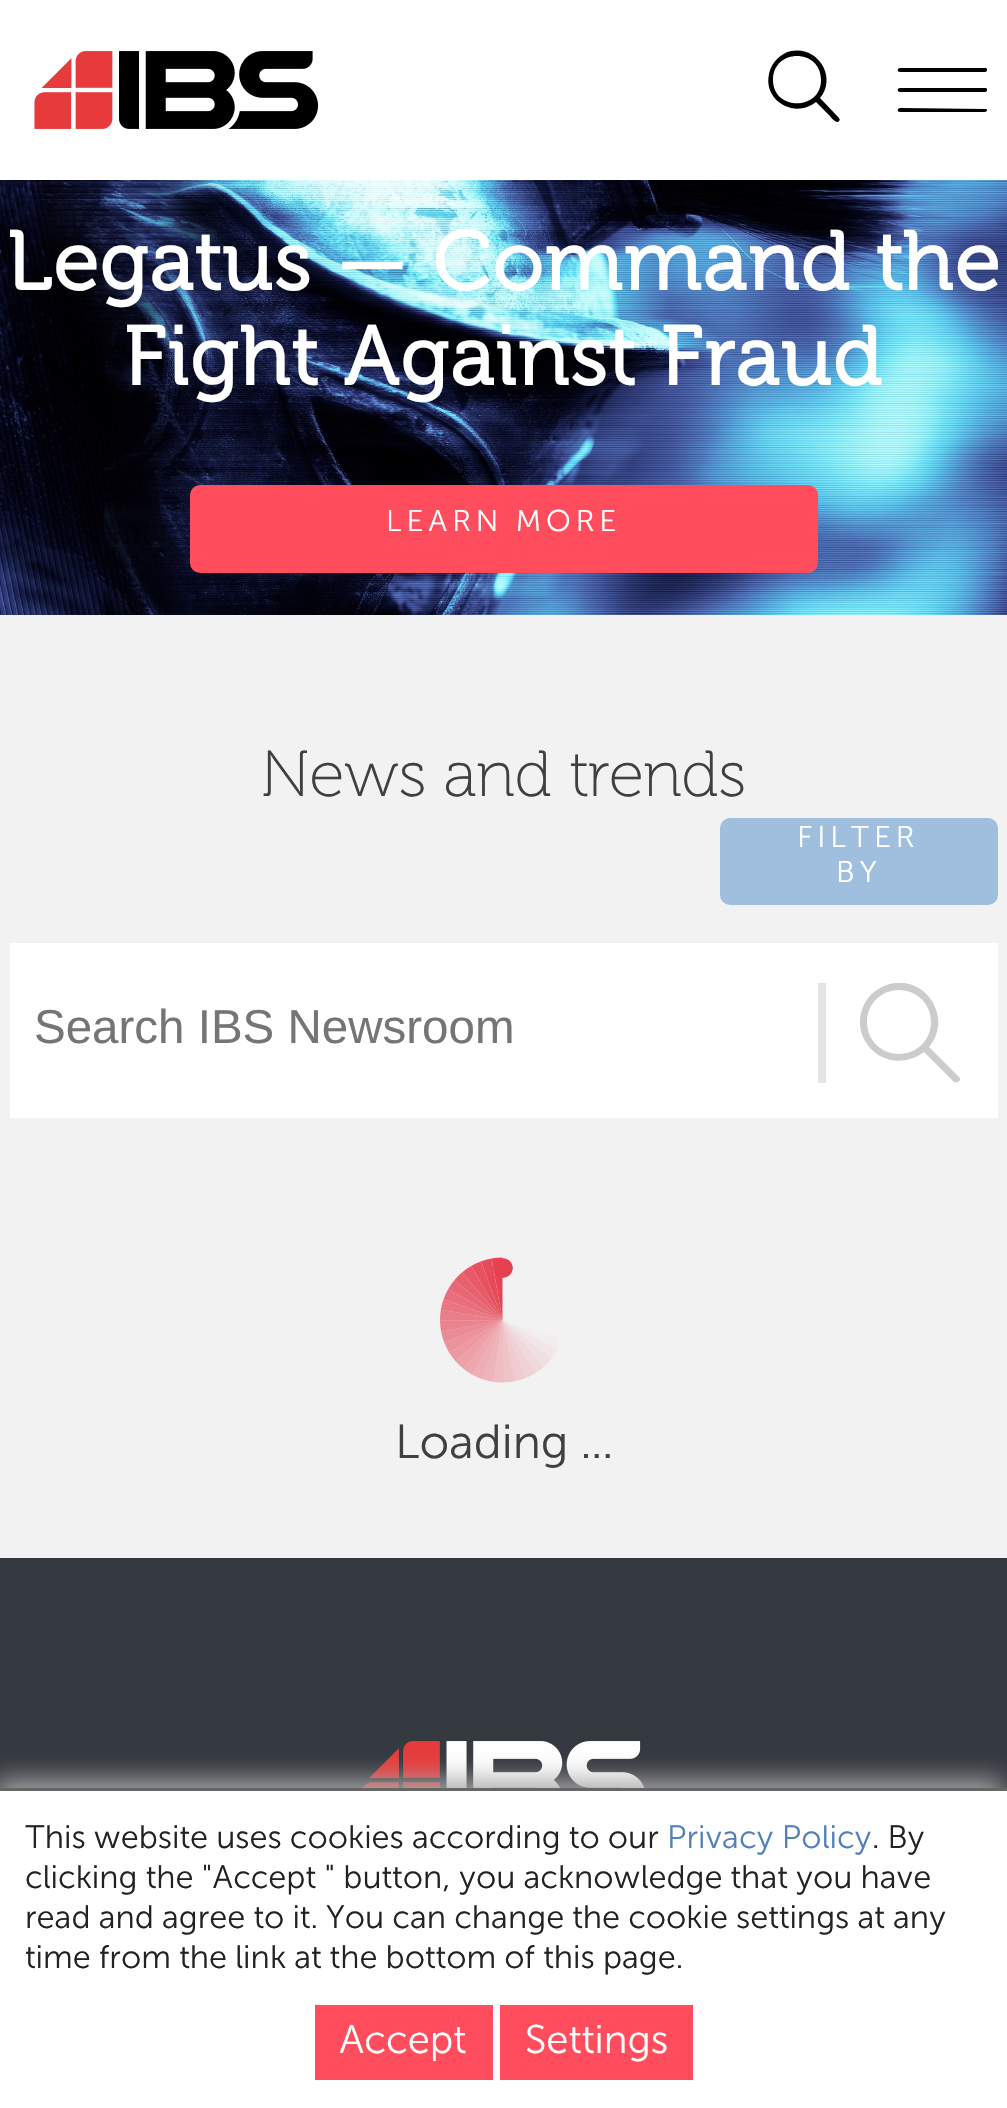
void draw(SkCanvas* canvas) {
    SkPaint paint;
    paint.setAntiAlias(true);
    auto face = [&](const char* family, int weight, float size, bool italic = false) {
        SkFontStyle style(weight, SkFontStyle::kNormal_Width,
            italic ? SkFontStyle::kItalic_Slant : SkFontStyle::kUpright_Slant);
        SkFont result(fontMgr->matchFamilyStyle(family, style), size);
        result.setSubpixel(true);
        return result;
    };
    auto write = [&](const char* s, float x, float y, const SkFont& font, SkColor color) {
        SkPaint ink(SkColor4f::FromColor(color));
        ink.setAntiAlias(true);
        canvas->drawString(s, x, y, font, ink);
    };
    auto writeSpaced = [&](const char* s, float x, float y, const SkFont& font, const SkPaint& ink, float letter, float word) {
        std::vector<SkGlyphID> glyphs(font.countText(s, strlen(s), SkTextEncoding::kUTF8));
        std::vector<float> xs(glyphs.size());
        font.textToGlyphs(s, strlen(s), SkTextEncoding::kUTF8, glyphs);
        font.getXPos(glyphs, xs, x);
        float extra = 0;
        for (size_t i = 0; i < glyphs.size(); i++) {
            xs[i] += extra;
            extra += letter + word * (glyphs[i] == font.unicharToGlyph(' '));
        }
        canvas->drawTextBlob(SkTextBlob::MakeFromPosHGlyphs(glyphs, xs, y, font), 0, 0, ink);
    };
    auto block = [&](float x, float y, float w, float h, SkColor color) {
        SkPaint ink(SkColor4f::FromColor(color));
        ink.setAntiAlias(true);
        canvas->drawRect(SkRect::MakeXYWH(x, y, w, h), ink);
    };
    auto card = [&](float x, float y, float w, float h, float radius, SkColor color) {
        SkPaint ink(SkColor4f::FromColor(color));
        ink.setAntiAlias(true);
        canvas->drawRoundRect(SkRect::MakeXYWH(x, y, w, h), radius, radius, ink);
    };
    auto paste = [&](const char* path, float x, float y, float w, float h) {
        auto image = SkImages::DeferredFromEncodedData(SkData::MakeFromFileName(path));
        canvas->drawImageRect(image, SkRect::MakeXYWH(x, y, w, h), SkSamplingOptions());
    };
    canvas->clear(SK_ColorWHITE);
    paste("pic1.png", 34, 51, 285, 78);
    paint.setColor(SK_ColorBLACK);
    canvas->drawPath(SkPathBuilder().moveTo(839, 118).lineTo(820, 98).cubicTo(837, 78, 819, 46, 791, 51).cubicTo(786, 52, 781, 55, 777, 59).cubicTo(773, 63, 770, 68, 769, 74).cubicTo(763, 101, 795, 119, 816, 102).lineTo(829, 115).cubicTo(830, 116, 835, 123, 838, 122).cubicTo(840, 121, 840, 119, 839, 118).close().moveTo(773, 80).cubicTo(773, 48, 821, 48, 821, 80).cubicTo(821, 111, 773, 111, 773, 80).close().detach(), paint);
    canvas->drawPath(SkPathBuilder().moveTo(900, 72).lineTo(985, 72).cubicTo(987, 72, 988, 69, 986, 68).lineTo(900, 68).cubicTo(897, 68, 897, 72, 900, 72).close().detach(), paint);
    canvas->drawPath(SkPathBuilder().moveTo(900, 92).lineTo(985, 92).cubicTo(987, 92, 988, 89, 986, 88).lineTo(900, 88).cubicTo(897, 88, 897, 92, 900, 92).close().detach(), paint);
    canvas->drawPath(SkPathBuilder().moveTo(900, 112).lineTo(985, 112).cubicTo(987, 112, 988, 109, 986, 109).lineTo(900, 108).cubicTo(897, 108, 897, 112, 900, 112).close().detach(), paint);
    block(0, 615, 1007, 943, SkColorSetRGB(242, 242, 242));
    paste("pic2.png", 0, 180, 1007, 435);
    auto kFont1 = face("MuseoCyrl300", 700, 82.5f);
    paint.setColor(SK_ColorWHITE);
    writeSpaced("Legatus — Command the", 7, 290, kFont1, paint, 2.5f, 0);
    writeSpaced("Fight Against Fraud", 124, 385, kFont1, paint, 2.5f, 0);
    card(190, 485, 628, 88, 10, SkColorSetRGB(255, 77, 94));
    auto kFont2 = face("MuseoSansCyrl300", 400, 30);
    writeSpaced("LEARN MORE", 386, 531, kFont2, paint, 5, 0);
    auto kFont3 = face("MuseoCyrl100", 400, 65);
    write("News and trends", 261, 796, kFont3, SkColorSetRGB(64, 64, 64));
    card(720, 818, 278, 87, 10, SkColorSetRGB(160, 191, 222));
    writeSpaced("FILTER", 797, 847, kFont2, paint, 5, 0);
    writeSpaced("BY", 836, 882, kFont2, paint, 5, 0);
    block(10, 943, 988, 175, SK_ColorWHITE);
    auto kFont4 = face("Liberation Sans", 400, 47.5f);
    write("Search IBS Newsroom", 34, 1043, kFont4, SkColorSetRGB(117, 117, 117));
    canvas->save();
    canvas->clipRect(SkRect::MakeXYWH(860, 983, 100, 100));
    paint.setColor(SkColorSetRGB(204, 204, 204));
    canvas->drawPath(SkPathBuilder().moveTo(959, 1077).lineTo(929, 1047).cubicTo(955, 1016, 922, 970, 884, 986).cubicTo(875, 990, 867, 997, 863, 1007).cubicTo(858, 1019, 859, 1033, 867, 1044).cubicTo(880, 1063, 906, 1066, 924, 1052).lineTo(954, 1082).cubicTo(956, 1083, 959, 1082, 960, 1080).cubicTo(960, 1079, 960, 1077, 959, 1077).close().moveTo(899, 1054).cubicTo(881, 1054, 867, 1040, 867, 1022).cubicTo(867, 1004, 881, 990, 899, 990).cubicTo(917, 990, 931, 1004, 931, 1022).cubicTo(931, 1040, 917, 1054, 899, 1054).close().detach(), paint);
    canvas->restore();
    block(818, 983, 8, 100, SkColorSetRGB(228, 228, 228));
    paste("pic3.png", 440, 1257, 118, 126);
    {
        const SkColor colors[] = {SkColorSetRGB(230, 64, 81), SkColorSetARGB(0, 230, 64, 81)};
        const float stops[] = {0.94f, 1};
        paint.setShader(SkGradientShader::MakeRadial({503, 1268}, 10, colors, stops, 2, SkTileMode::kClamp));
        paint.setAlpha(255);
    }
    canvas->drawRect(SkRect::MakeXYWH(493, 1258, 20, 20), paint);
    auto kFont5 = face("MuseoSansCyrl300", 400, 47.5f);
    write("Loading ...", 395, 1458, kFont5, SkColorSetRGB(64, 64, 64));
    block(0, 1558, 1007, 230, SkColorSetRGB(52, 56, 63));
    paste("pic4.png", 363, 1741, 282, 47);
    paint.setShader(nullptr);
    paint.setColor(SkColorSetRGB(170, 170, 170));
    paint.setMaskFilter(SkMaskFilter::MakeBlur(kNormal_SkBlurStyle, 12.5f));
    canvas->drawRect(SkRect::MakeXYWH(-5, 1780, 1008, 323), paint);
    paint.setMaskFilter(nullptr);
    block(0, 1791, 1007, 317, SK_ColorWHITE);
    block(0, 1788, 1007, 3, SkColorSetRGB(102, 102, 102));
    auto kFont6 = face("MuseoSansCyrl300", 400, 32.5f);
    write("This website uses cookies according to our", 25, 1848, kFont6, SkColorSetRGB(34, 34, 34));
    write("Privacy Policy", 667, 1848, kFont6, SkColorSetRGB(79, 127, 189));
    write(". By", 872, 1848, kFont6, SkColorSetRGB(34, 34, 34));
    write("clicking the \"Accept \" button, you acknowledge that you have", 25, 1888, kFont6, SkColorSetRGB(34, 34, 34));
    write("read and agree to it. You can change the cookie settings at any", 25, 1928, kFont6, SkColorSetRGB(34, 34, 34));
    write("time from the link at the bottom of this page.", 25, 1968, kFont6, SkColorSetRGB(34, 34, 34));
    block(315, 2005, 178, 75, SkColorSetRGB(255, 77, 94));
    auto kFont7 = face("MuseoSansCyrl300", 400, 40);
    write("Accept", 339, 2053, kFont7, SK_ColorWHITE);
    block(500, 2005, 193, 75, SkColorSetRGB(255, 77, 94));
    write("Settings", 525, 2053, kFont7, SK_ColorWHITE);
}
